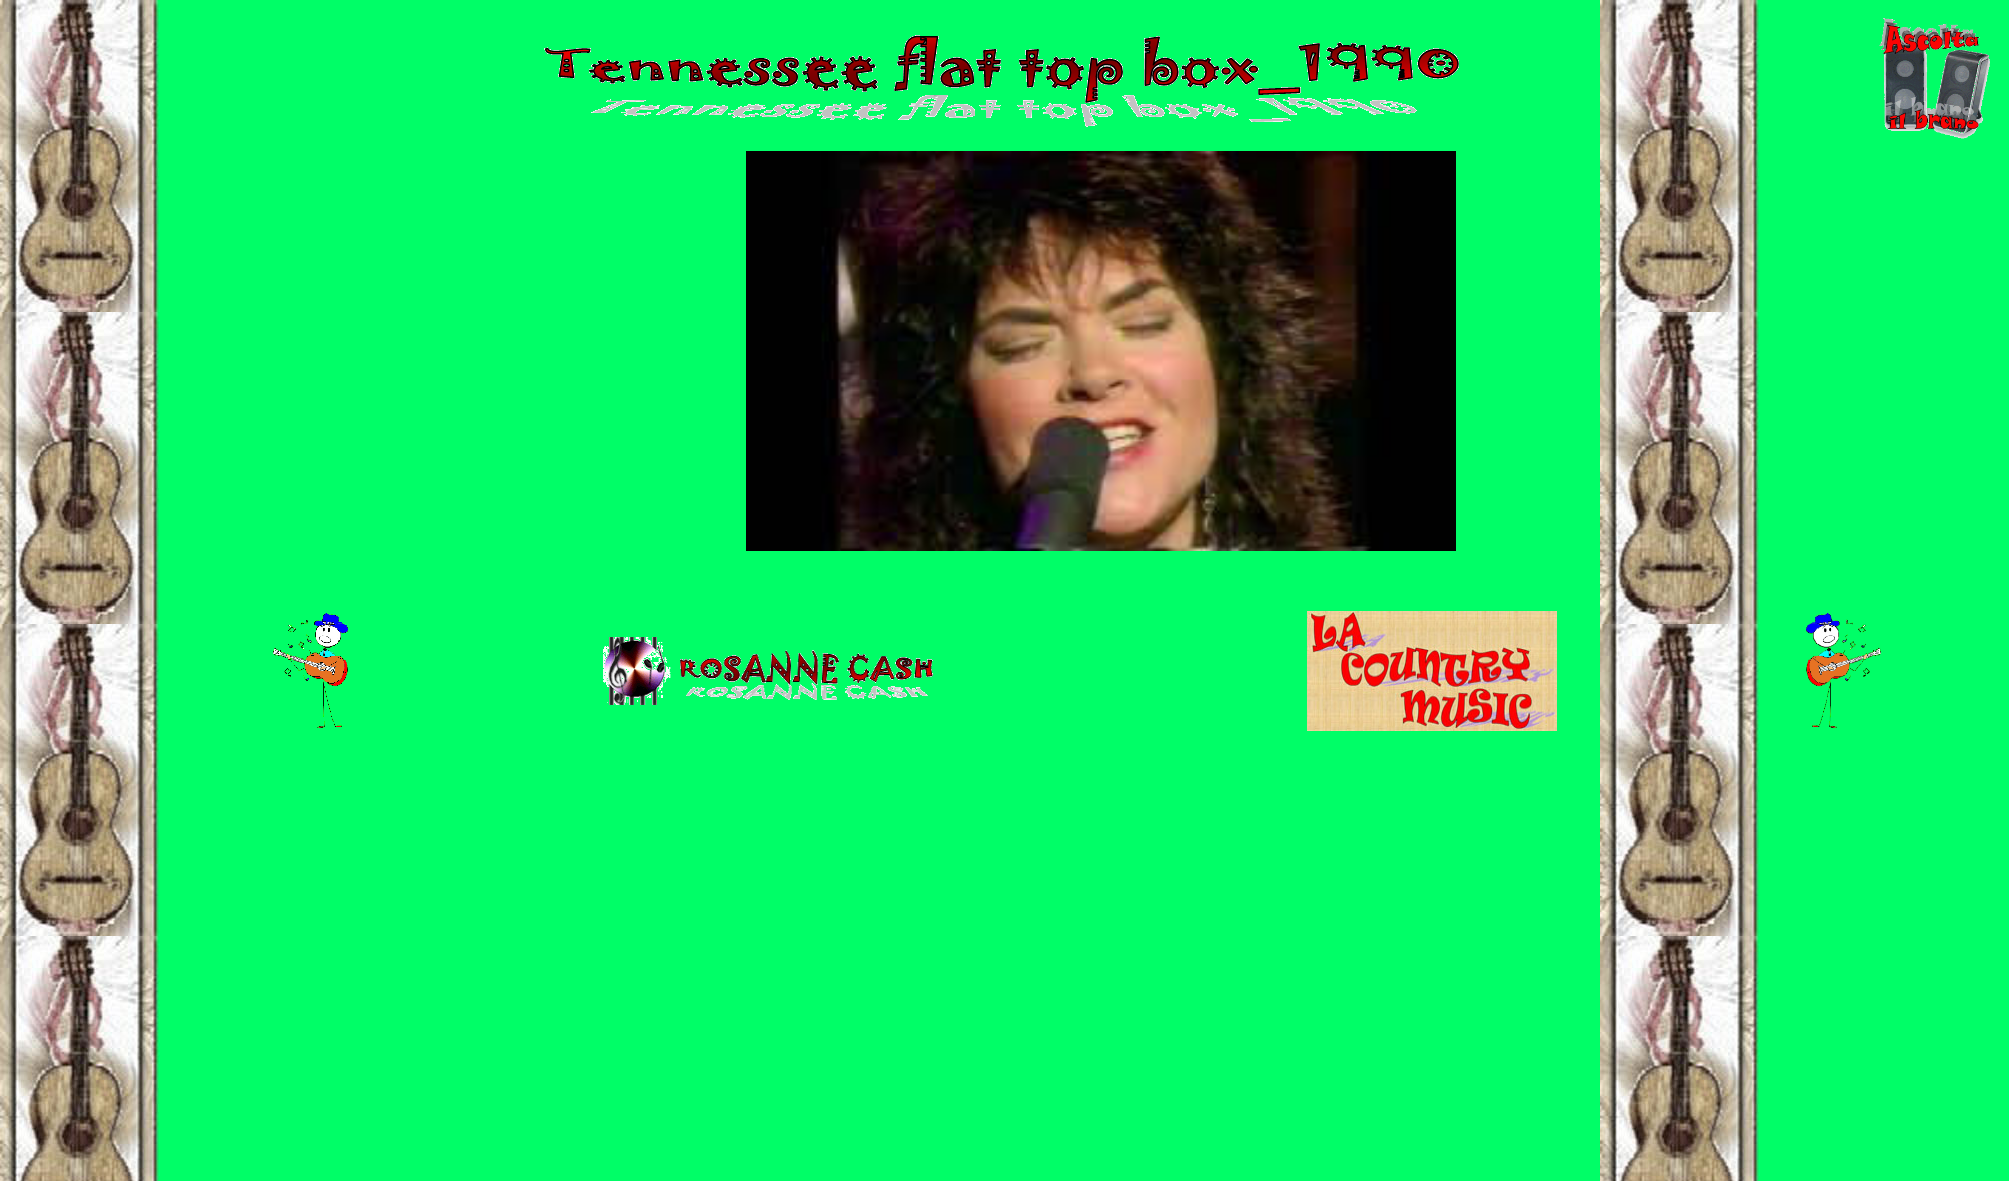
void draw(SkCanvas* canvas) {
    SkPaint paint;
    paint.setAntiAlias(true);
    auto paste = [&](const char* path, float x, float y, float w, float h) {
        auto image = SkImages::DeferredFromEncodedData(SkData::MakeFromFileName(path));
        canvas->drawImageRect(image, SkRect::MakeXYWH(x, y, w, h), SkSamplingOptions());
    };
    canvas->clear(SK_ColorWHITE);
    paste("pic1.png", 0, 0, 2009, 1181);
    paste("pic2.png", 544, 35, 915, 92);
    paste("pic3.png", 1879, 18, 111, 121);
    paste("pic4.png", 746, 151, 710, 400);
    paste("pic5.png", 273, 613, 75, 115);
    paste("pic6.png", 603, 637, 330, 68);
    paste("pic7.png", 1307, 611, 250, 120);
    paste("pic8.png", 1806, 612, 75, 117);
}
